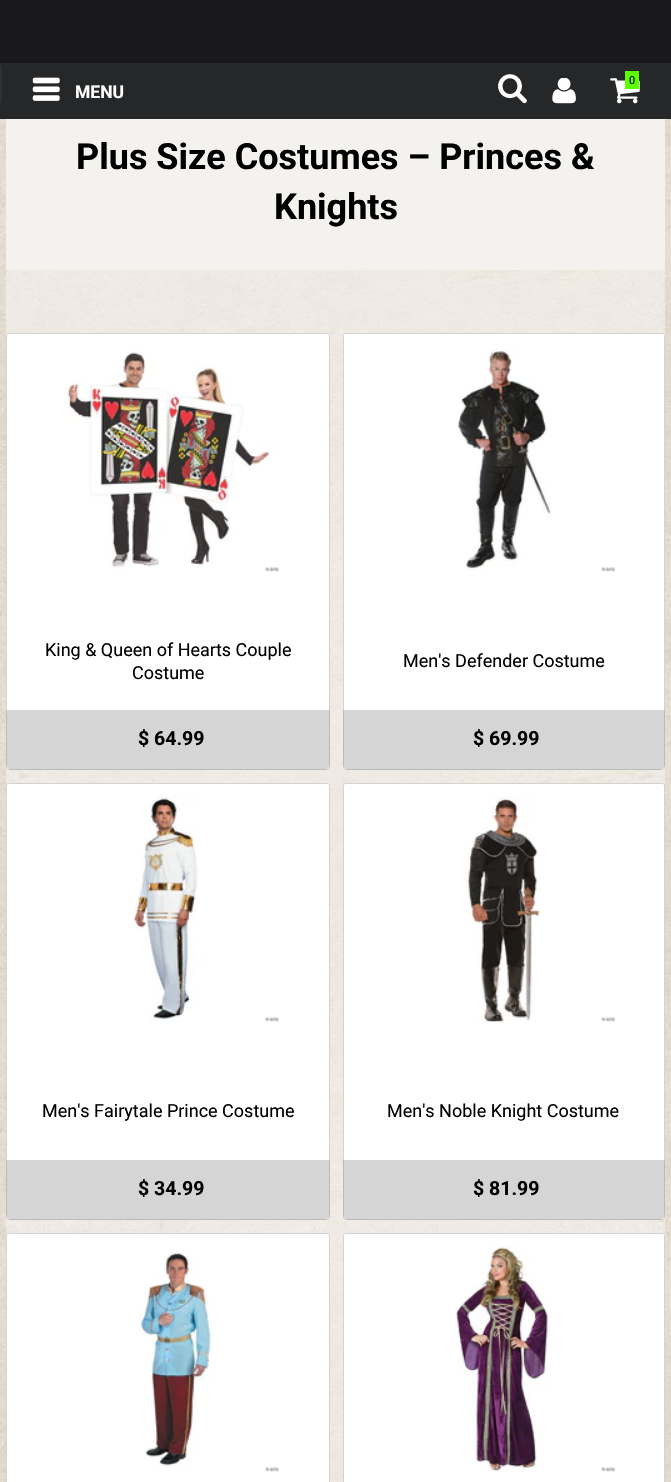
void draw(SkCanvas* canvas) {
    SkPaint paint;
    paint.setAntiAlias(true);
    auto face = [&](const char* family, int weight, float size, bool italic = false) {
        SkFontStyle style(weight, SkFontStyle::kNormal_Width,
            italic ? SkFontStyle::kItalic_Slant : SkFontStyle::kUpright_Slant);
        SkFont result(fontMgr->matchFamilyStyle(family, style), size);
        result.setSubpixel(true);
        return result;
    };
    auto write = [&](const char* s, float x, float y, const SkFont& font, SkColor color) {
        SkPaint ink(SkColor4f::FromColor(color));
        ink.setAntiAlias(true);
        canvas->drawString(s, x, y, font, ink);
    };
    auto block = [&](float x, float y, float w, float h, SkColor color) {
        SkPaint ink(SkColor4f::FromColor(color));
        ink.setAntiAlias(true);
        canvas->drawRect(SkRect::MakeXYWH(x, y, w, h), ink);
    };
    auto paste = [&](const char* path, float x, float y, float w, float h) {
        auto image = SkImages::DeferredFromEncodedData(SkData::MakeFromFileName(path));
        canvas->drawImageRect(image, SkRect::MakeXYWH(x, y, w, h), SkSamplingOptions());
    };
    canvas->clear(SK_ColorWHITE);
    paste("pic1.png", 0, 119, 671, 1363);
    block(0, 0, 671, 63, SkColorSetRGB(25, 25, 29));
    block(0, 63, 671, 56, SkColorSetRGB(38, 39, 40));
    paint.setColor(SkColorSetRGB(72, 71, 72));
    paint.setMaskFilter(SkMaskFilter::MakeBlur(kNormal_SkBlurStyle, 1.5f));
    canvas->drawRoundRect(SkRect::MakeXYWH(-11, 63, 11, 42), 6, 6, paint);
    paint.setMaskFilter(nullptr);
    paste("pic2.png", 32, 77, 28, 24);
    auto kFont1 = face("Roboto", 700, 17.5f);
    write("MENU", 75, 98, kFont1, SK_ColorWHITE);
    paste("pic3.png", 498, 74, 29, 30);
    paste("pic4.png", 552, 78, 24, 26);
    paste("pic5.png", 610, 78, 30, 26);
    block(625, 71, 14, 18, SkColorSetRGB(91, 255, 0));
    auto kFont2 = face("Roboto", 400, 11);
    write("0", 629, 84, kFont2, SK_ColorBLACK);
    block(6, 119, 659, 151, SkColorSetRGB(244, 242, 238));
    auto kFont3 = face("Roboto", 700, 36);
    write("Plus Size Costumes – Princes &", 76, 169, kFont3, SK_ColorBLACK);
    write("Knights", 274, 219, kFont3, SK_ColorBLACK);
    paint.setColor(SK_ColorWHITE);
    canvas->drawRoundRect(SkRect::MakeXYWH(6.5f, 333.5f, 323, 436), 2, 2, paint);
    paint.setStyle(SkPaint::kStroke_Style);
    paint.setStrokeWidth(1);
    paint.setColor(SkColorSetRGB(211, 211, 211));
    canvas->drawRoundRect(SkRect::MakeXYWH(6.5f, 333.5f, 323, 436), 2, 2, paint);
    paste("pic6.png", 66, 351, 213, 221);
    auto kFont4 = face("Roboto", 400, 18);
    write("King & Queen of Hearts Couple", 45, 656, kFont4, SK_ColorBLACK);
    write("Costume", 132, 679, kFont4, SK_ColorBLACK);
    paint.setStyle(SkPaint::kFill_Style);
    paint.setColor(SkColorSetARGB(102, 150, 150, 150));
    canvas->drawPath(SkPathBuilder().moveTo(6, 710).lineTo(330, 710).lineTo(330, 764).cubicTo(330, 767.5f, 327.5f, 770, 324, 770).lineTo(12, 770).cubicTo(8.5f, 770, 6, 767.5f, 6, 764).close().detach(), paint);
    auto kFont5 = face("Roboto", 700, 19.5f);
    write("$ 64.99", 138, 745, kFont5, SK_ColorBLACK);
    paint.setColor(SK_ColorWHITE);
    canvas->drawRoundRect(SkRect::MakeXYWH(343.5f, 333.5f, 321, 436), 2, 2, paint);
    paint.setStyle(SkPaint::kStroke_Style);
    paint.setColor(SkColorSetRGB(211, 211, 211));
    canvas->drawRoundRect(SkRect::MakeXYWH(343.5f, 333.5f, 321, 436), 2, 2, paint);
    paste("pic7.png", 456, 350, 160, 222);
    write("Men's Defender Costume", 403, 667, kFont4, SK_ColorBLACK);
    paint.setStyle(SkPaint::kFill_Style);
    paint.setColor(SkColorSetARGB(102, 150, 150, 150));
    canvas->drawPath(SkPathBuilder().moveTo(343, 710).lineTo(665, 710).lineTo(665, 764).cubicTo(665, 767.5f, 662.5f, 770, 659, 770).lineTo(349, 770).cubicTo(345.5f, 770, 343, 767.5f, 343, 764).close().detach(), paint);
    write("$ 69.99", 473, 745, kFont5, SK_ColorBLACK);
    paint.setColor(SK_ColorWHITE);
    canvas->drawRoundRect(SkRect::MakeXYWH(6.5f, 783.5f, 323, 436), 2, 2, paint);
    paint.setStyle(SkPaint::kStroke_Style);
    paint.setColor(SkColorSetRGB(211, 211, 211));
    canvas->drawRoundRect(SkRect::MakeXYWH(6.5f, 783.5f, 323, 436), 2, 2, paint);
    paste("pic8.png", 133, 796, 146, 226);
    write("Men's Fairytale Prince Costume", 42, 1117, kFont4, SK_ColorBLACK);
    paint.setStyle(SkPaint::kFill_Style);
    paint.setColor(SkColorSetARGB(102, 150, 150, 150));
    canvas->drawPath(SkPathBuilder().moveTo(6, 1160).lineTo(330, 1160).lineTo(330, 1214).cubicTo(330, 1217.5f, 327.5f, 1220, 324, 1220).lineTo(12, 1220).cubicTo(8.5f, 1220, 6, 1217.5f, 6, 1214).close().detach(), paint);
    write("$ 34.99", 138, 1195, kFont5, SK_ColorBLACK);
    paint.setColor(SK_ColorWHITE);
    canvas->drawRoundRect(SkRect::MakeXYWH(343.5f, 783.5f, 321, 436), 2, 2, paint);
    paint.setStyle(SkPaint::kStroke_Style);
    paint.setColor(SkColorSetRGB(211, 211, 211));
    canvas->drawRoundRect(SkRect::MakeXYWH(343.5f, 783.5f, 321, 436), 2, 2, paint);
    paste("pic9.png", 466, 796, 150, 226);
    write("Men's Noble Knight Costume", 387, 1117, kFont4, SK_ColorBLACK);
    paint.setStyle(SkPaint::kFill_Style);
    paint.setColor(SkColorSetARGB(102, 150, 150, 150));
    canvas->drawPath(SkPathBuilder().moveTo(343, 1160).lineTo(665, 1160).lineTo(665, 1214).cubicTo(665, 1217.5f, 662.5f, 1220, 659, 1220).lineTo(349, 1220).cubicTo(345.5f, 1220, 343, 1217.5f, 343, 1214).close().detach(), paint);
    write("$ 81.99", 473, 1195, kFont5, SK_ColorBLACK);
    paint.setColor(SK_ColorWHITE);
    canvas->drawRoundRect(SkRect::MakeXYWH(6.5f, 1233.5f, 323, 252), 2, 2, paint);
    paint.setStyle(SkPaint::kStroke_Style);
    paint.setColor(SkColorSetRGB(211, 211, 211));
    canvas->drawRoundRect(SkRect::MakeXYWH(6.5f, 1233.5f, 323, 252), 2, 2, paint);
    paste("pic10.png", 139, 1253, 140, 219);
    paint.setStyle(SkPaint::kFill_Style);
    paint.setColor(SK_ColorWHITE);
    canvas->drawRoundRect(SkRect::MakeXYWH(343.5f, 1233.5f, 321, 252), 2, 2, paint);
    paint.setStyle(SkPaint::kStroke_Style);
    paint.setColor(SkColorSetRGB(211, 211, 211));
    canvas->drawRoundRect(SkRect::MakeXYWH(343.5f, 1233.5f, 321, 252), 2, 2, paint);
    paste("pic11.png", 456, 1246, 160, 226);
}
